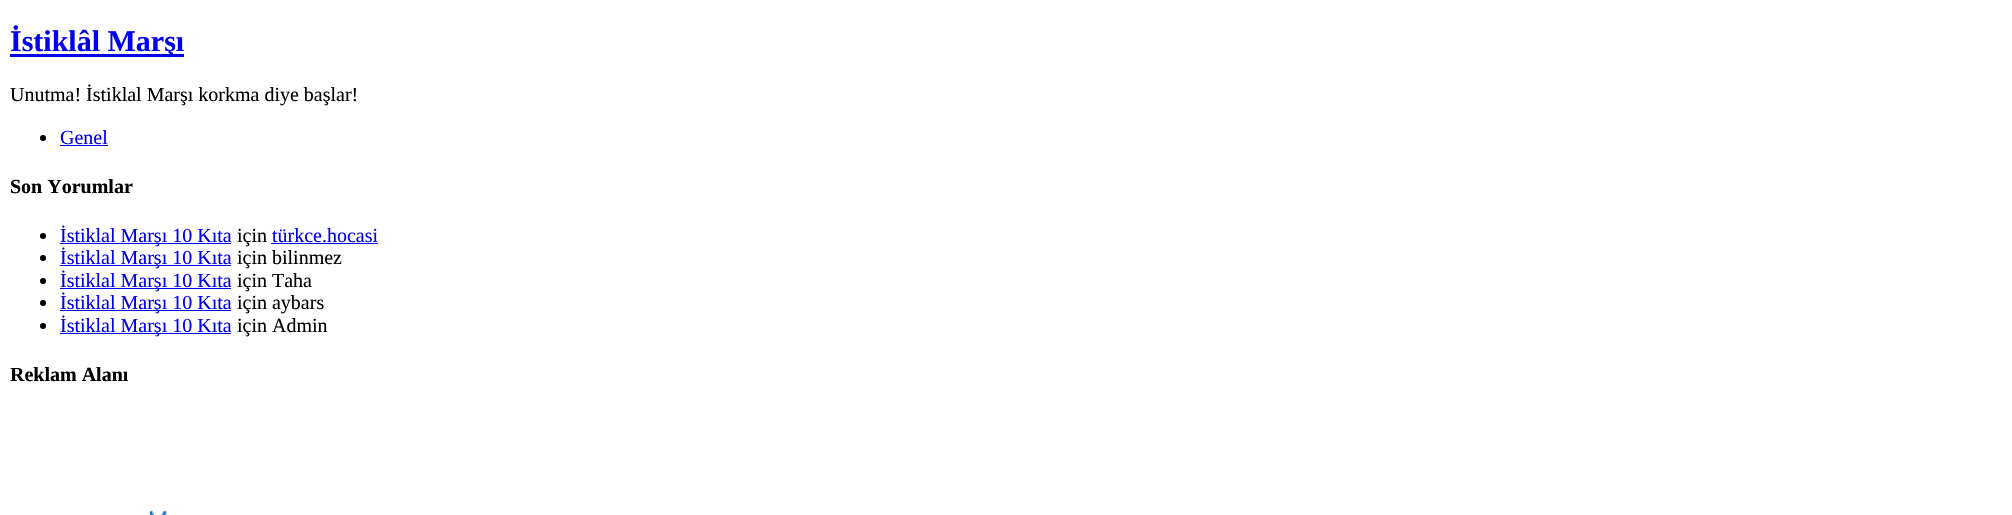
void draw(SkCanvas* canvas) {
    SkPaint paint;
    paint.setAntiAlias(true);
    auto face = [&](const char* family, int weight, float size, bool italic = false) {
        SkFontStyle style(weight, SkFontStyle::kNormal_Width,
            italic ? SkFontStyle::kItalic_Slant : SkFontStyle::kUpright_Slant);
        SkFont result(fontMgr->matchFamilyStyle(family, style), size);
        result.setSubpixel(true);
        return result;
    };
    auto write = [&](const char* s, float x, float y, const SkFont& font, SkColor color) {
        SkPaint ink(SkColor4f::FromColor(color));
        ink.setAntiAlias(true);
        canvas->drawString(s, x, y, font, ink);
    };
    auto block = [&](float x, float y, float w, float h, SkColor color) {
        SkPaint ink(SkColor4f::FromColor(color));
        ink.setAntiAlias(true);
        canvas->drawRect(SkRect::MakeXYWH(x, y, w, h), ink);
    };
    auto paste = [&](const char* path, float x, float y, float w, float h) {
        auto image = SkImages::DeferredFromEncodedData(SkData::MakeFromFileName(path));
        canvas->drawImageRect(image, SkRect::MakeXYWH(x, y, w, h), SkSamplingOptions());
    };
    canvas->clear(SK_ColorWHITE);
    block(10, 54, 174, 3, SkColorSetRGB(0, 0, 238));
    auto kFont1 = face("Liberation Serif", 700, 30);
    write("İstiklâl Marşı", 10, 51, kFont1, SkColorSetRGB(0, 0, 238));
    auto kFont2 = face("Liberation Serif", 400, 20);
    write("Unutma! İstiklal Marşı korkma diye başlar!", 10, 101, kFont2, SK_ColorBLACK);
    paint.setColor(SK_ColorBLACK);
    canvas->drawCircle(43, 138, 3, paint);
    write("Genel", 60, 144, kFont2, SkColorSetRGB(0, 0, 238));
    block(60, 145, 48, 1, SkColorSetRGB(0, 0, 238));
    auto kFont3 = face("Liberation Serif", 700, 20);
    write("Son Yorumlar", 10, 193, kFont3, SK_ColorBLACK);
    canvas->drawCircle(43, 236, 3, paint);
    block(60, 243, 171, 1, SkColorSetRGB(0, 0, 238));
    write("İstiklal Marşı 10 Kıta", 60, 242, kFont2, SkColorSetRGB(0, 0, 238));
    write("için", 237, 242, kFont2, SK_ColorBLACK);
    write("türkce.hocasi", 272, 242, kFont2, SkColorSetRGB(0, 0, 238));
    block(271, 243, 107, 1, SkColorSetRGB(0, 0, 238));
    canvas->drawCircle(43, 258, 3, paint);
    block(60, 265, 171, 1, SkColorSetRGB(0, 0, 238));
    write("İstiklal Marşı 10 Kıta", 60, 264, kFont2, SkColorSetRGB(0, 0, 238));
    write("için bilinmez", 237, 264, kFont2, SK_ColorBLACK);
    canvas->drawCircle(43, 281, 3, paint);
    block(60, 288, 171, 1, SkColorSetRGB(0, 0, 238));
    write("İstiklal Marşı 10 Kıta", 60, 287, kFont2, SkColorSetRGB(0, 0, 238));
    write("için Taha", 237, 287, kFont2, SK_ColorBLACK);
    canvas->drawCircle(43, 303, 3, paint);
    block(60, 310, 171, 1, SkColorSetRGB(0, 0, 238));
    write("İstiklal Marşı 10 Kıta", 60, 309, kFont2, SkColorSetRGB(0, 0, 238));
    write("için aybars", 237, 309, kFont2, SK_ColorBLACK);
    canvas->drawCircle(43, 326, 3, paint);
    block(60, 333, 171, 1, SkColorSetRGB(0, 0, 238));
    write("İstiklal Marşı 10 Kıta", 60, 332, kFont2, SkColorSetRGB(0, 0, 238));
    write("için Admin", 237, 332, kFont2, SK_ColorBLACK);
    write("Reklam Alanı", 10, 381, kFont3, SK_ColorBLACK);
    paste("pic1.png", 148, 510, 19, 5);
}
